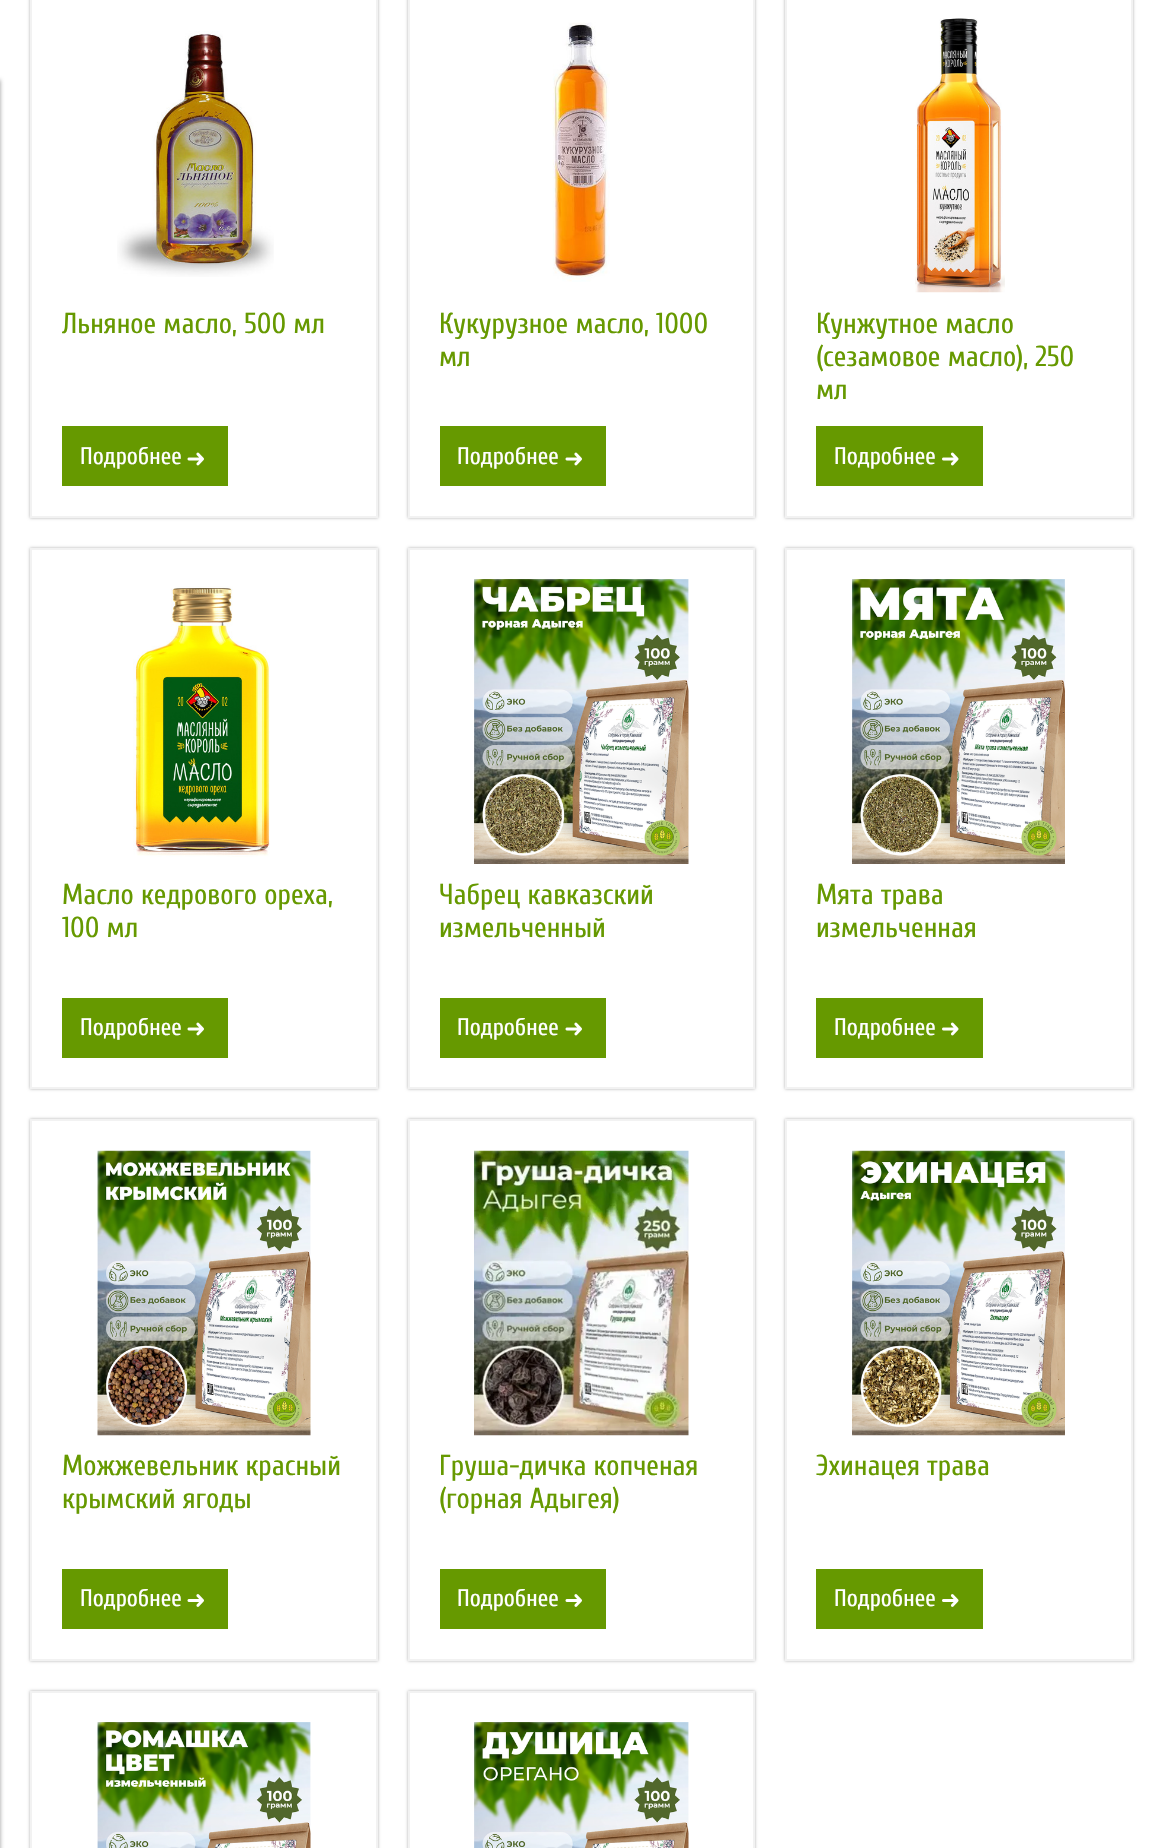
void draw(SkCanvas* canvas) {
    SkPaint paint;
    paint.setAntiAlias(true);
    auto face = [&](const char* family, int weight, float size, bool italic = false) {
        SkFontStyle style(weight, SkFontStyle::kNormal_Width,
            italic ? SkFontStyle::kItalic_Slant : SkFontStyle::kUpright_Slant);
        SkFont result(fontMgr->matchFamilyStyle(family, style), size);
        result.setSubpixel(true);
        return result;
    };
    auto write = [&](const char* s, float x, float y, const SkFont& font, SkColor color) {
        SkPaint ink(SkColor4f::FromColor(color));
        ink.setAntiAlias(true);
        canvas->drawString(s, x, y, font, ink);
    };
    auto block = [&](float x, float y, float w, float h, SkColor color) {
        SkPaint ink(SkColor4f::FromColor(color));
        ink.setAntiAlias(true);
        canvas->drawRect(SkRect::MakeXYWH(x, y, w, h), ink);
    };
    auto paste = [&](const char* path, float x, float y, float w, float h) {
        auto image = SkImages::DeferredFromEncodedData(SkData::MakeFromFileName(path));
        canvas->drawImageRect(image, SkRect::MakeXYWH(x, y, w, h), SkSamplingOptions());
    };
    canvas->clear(SK_ColorWHITE);
    paint.setColor(SkColorSetARGB(102, 0, 0, 0));
    paint.setMaskFilter(SkMaskFilter::MakeBlur(kNormal_SkBlurStyle, 2));
    canvas->drawRect(SkRect::MakeXYWH(-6, 80, 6, 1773), paint);
    paint.setMaskFilter(nullptr);
    paint.setColor(SkColorSetARGB(77, 0, 0, 0));
    paint.setMaskFilter(SkMaskFilter::MakeBlur(kNormal_SkBlurStyle, 1.5f));
    canvas->drawRect(SkRect::MakeXYWH(30, -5, 348, 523), paint);
    paint.setMaskFilter(nullptr);
    paint.setColor(SK_ColorWHITE);
    canvas->drawRect(SkRect::MakeXYWH(31, -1, 346, 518), paint);
    paint.setStyle(SkPaint::kStroke_Style);
    paint.setStrokeWidth(2);
    paint.setColor(SkColorSetRGB(242, 242, 242));
    canvas->drawRect(SkRect::MakeXYWH(31, -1, 346, 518), paint);
    paste("pic1.png", 117, 31, 157, 246);
    auto kFont1 = face("Cuprum", 400, 28.75f);
    write("Льняное масло, 500 мл", 62, 333, kFont1, SkColorSetRGB(102, 153, 0));
    block(62, 426, 166, 60, SkColorSetRGB(102, 153, 0));
    auto kFont2 = face("Cuprum", 400, 24);
    write("Подробнее", 80, 464, kFont2, SK_ColorWHITE);
    paste("pic2.png", 187, 452, 17, 14);
    paint.setStyle(SkPaint::kFill_Style);
    paint.setColor(SkColorSetARGB(77, 0, 0, 0));
    paint.setMaskFilter(SkMaskFilter::MakeBlur(kNormal_SkBlurStyle, 1.5f));
    canvas->drawRect(SkRect::MakeXYWH(408, -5, 347, 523), paint);
    paint.setMaskFilter(nullptr);
    paint.setColor(SK_ColorWHITE);
    canvas->drawRect(SkRect::MakeXYWH(409, -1, 345, 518), paint);
    paint.setStyle(SkPaint::kStroke_Style);
    paint.setColor(SkColorSetRGB(242, 242, 242));
    canvas->drawRect(SkRect::MakeXYWH(409, -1, 345, 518), paint);
    paste("pic3.png", 552, 22, 58, 260);
    write("Кукурузное масло, 1000", 439, 333, kFont1, SkColorSetRGB(102, 153, 0));
    write("мл", 439, 366, kFont1, SkColorSetRGB(102, 153, 0));
    block(440, 426, 166, 60, SkColorSetRGB(102, 153, 0));
    write("Подробнее", 457, 464, kFont2, SK_ColorWHITE);
    paste("pic2.png", 565, 452, 17, 14);
    paint.setStyle(SkPaint::kFill_Style);
    paint.setColor(SkColorSetARGB(77, 0, 0, 0));
    paint.setMaskFilter(SkMaskFilter::MakeBlur(kNormal_SkBlurStyle, 1.5f));
    canvas->drawRect(SkRect::MakeXYWH(785, -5, 348, 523), paint);
    paint.setMaskFilter(nullptr);
    paint.setColor(SK_ColorWHITE);
    canvas->drawRect(SkRect::MakeXYWH(786, -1, 346, 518), paint);
    paint.setStyle(SkPaint::kStroke_Style);
    paint.setColor(SkColorSetRGB(242, 242, 242));
    canvas->drawRect(SkRect::MakeXYWH(786, -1, 346, 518), paint);
    paste("pic4.png", 915, 18, 90, 275);
    write("Кунжутное масло", 816, 333, kFont1, SkColorSetRGB(102, 153, 0));
    write("(сезамовое масло), 250", 816, 366, kFont1, SkColorSetRGB(102, 153, 0));
    write("мл", 816, 399, kFont1, SkColorSetRGB(102, 153, 0));
    block(816, 426, 167, 60, SkColorSetRGB(102, 153, 0));
    write("Подробнее", 834, 464, kFont2, SK_ColorWHITE);
    paste("pic5.png", 942, 452, 17, 14);
    canvas->save();
    canvas->clipPath(SkPathBuilder(SkPathFillType::kEvenOdd).moveTo(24, 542).lineTo(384, 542).lineTo(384, 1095).lineTo(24, 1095).close().moveTo(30, 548).lineTo(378, 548).lineTo(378, 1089).lineTo(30, 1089).close().detach(), true);
    paint.setStyle(SkPaint::kFill_Style);
    paint.setColor(SkColorSetARGB(77, 0, 0, 0));
    paint.setMaskFilter(SkMaskFilter::MakeBlur(kNormal_SkBlurStyle, 1.5f));
    canvas->drawRect(SkRect::MakeXYWH(30, 548, 348, 541), paint);
    paint.setMaskFilter(nullptr);
    canvas->restore();
    paint.setStyle(SkPaint::kStroke_Style);
    paint.setColor(SkColorSetRGB(242, 242, 242));
    canvas->drawRect(SkRect::MakeXYWH(31, 549, 346, 539), paint);
    paste("pic6.png", 133, 586, 137, 271);
    write("Масло кедрового ореха,", 62, 904, kFont1, SkColorSetRGB(102, 153, 0));
    write("100 мл", 62, 937, kFont1, SkColorSetRGB(102, 153, 0));
    block(62, 998, 166, 60, SkColorSetRGB(102, 153, 0));
    write("Подробнее", 80, 1035, kFont2, SK_ColorWHITE);
    paste("pic2.png", 187, 1022, 17, 14);
    paint.setStyle(SkPaint::kFill_Style);
    paint.setColor(SkColorSetARGB(77, 0, 0, 0));
    paint.setMaskFilter(SkMaskFilter::MakeBlur(kNormal_SkBlurStyle, 1.5f));
    canvas->drawRect(SkRect::MakeXYWH(408, 548, 347, 541), paint);
    paint.setMaskFilter(nullptr);
    paint.setColor(SK_ColorWHITE);
    canvas->drawRect(SkRect::MakeXYWH(409, 549, 345, 539), paint);
    paint.setStyle(SkPaint::kStroke_Style);
    paint.setColor(SkColorSetRGB(242, 242, 242));
    canvas->drawRect(SkRect::MakeXYWH(409, 549, 345, 539), paint);
    paste("pic7.png", 474, 579, 215, 285);
    write("Чабрец кавказский", 439, 904, kFont1, SkColorSetRGB(102, 153, 0));
    write("измельченный", 439, 937, kFont1, SkColorSetRGB(102, 153, 0));
    block(440, 998, 166, 60, SkColorSetRGB(102, 153, 0));
    write("Подробнее", 457, 1035, kFont2, SK_ColorWHITE);
    paste("pic2.png", 565, 1022, 17, 14);
    paint.setStyle(SkPaint::kFill_Style);
    paint.setColor(SkColorSetARGB(77, 0, 0, 0));
    paint.setMaskFilter(SkMaskFilter::MakeBlur(kNormal_SkBlurStyle, 1.5f));
    canvas->drawRect(SkRect::MakeXYWH(785, 548, 348, 541), paint);
    paint.setMaskFilter(nullptr);
    paint.setColor(SK_ColorWHITE);
    canvas->drawRect(SkRect::MakeXYWH(786, 549, 346, 539), paint);
    paint.setStyle(SkPaint::kStroke_Style);
    paint.setColor(SkColorSetRGB(242, 242, 242));
    canvas->drawRect(SkRect::MakeXYWH(786, 549, 346, 539), paint);
    paste("pic8.png", 852, 579, 213, 285);
    write("Мята трава", 816, 904, kFont1, SkColorSetRGB(102, 153, 0));
    write("измельченная", 816, 937, kFont1, SkColorSetRGB(102, 153, 0));
    block(816, 998, 167, 60, SkColorSetRGB(102, 153, 0));
    write("Подробнее", 834, 1035, kFont2, SK_ColorWHITE);
    paste("pic5.png", 942, 1022, 17, 14);
    paint.setStyle(SkPaint::kFill_Style);
    paint.setColor(SkColorSetARGB(77, 0, 0, 0));
    paint.setMaskFilter(SkMaskFilter::MakeBlur(kNormal_SkBlurStyle, 1.5f));
    canvas->drawRect(SkRect::MakeXYWH(30, 1119, 348, 542), paint);
    paint.setMaskFilter(nullptr);
    paint.setColor(SK_ColorWHITE);
    canvas->drawRect(SkRect::MakeXYWH(31, 1120, 346, 540), paint);
    paint.setStyle(SkPaint::kStroke_Style);
    paint.setColor(SkColorSetRGB(242, 242, 242));
    canvas->drawRect(SkRect::MakeXYWH(31, 1120, 346, 540), paint);
    paste("pic9.png", 97, 1150, 214, 286);
    write("Можжевельник красный", 62, 1475, kFont1, SkColorSetRGB(102, 153, 0));
    write("крымский ягоды", 62, 1508, kFont1, SkColorSetRGB(102, 153, 0));
    block(62, 1569, 166, 60, SkColorSetRGB(102, 153, 0));
    write("Подробнее", 80, 1606, kFont2, SK_ColorWHITE);
    paste("pic10.png", 187, 1594, 17, 13);
    paint.setStyle(SkPaint::kFill_Style);
    paint.setColor(SkColorSetARGB(77, 0, 0, 0));
    paint.setMaskFilter(SkMaskFilter::MakeBlur(kNormal_SkBlurStyle, 1.5f));
    canvas->drawRect(SkRect::MakeXYWH(408, 1119, 347, 542), paint);
    paint.setMaskFilter(nullptr);
    paint.setColor(SK_ColorWHITE);
    canvas->drawRect(SkRect::MakeXYWH(409, 1120, 345, 540), paint);
    paint.setStyle(SkPaint::kStroke_Style);
    paint.setColor(SkColorSetRGB(242, 242, 242));
    canvas->drawRect(SkRect::MakeXYWH(409, 1120, 345, 540), paint);
    paste("pic11.png", 474, 1150, 215, 286);
    write("Груша-дичка копченая", 439, 1475, kFont1, SkColorSetRGB(102, 153, 0));
    write("(горная Адыгея)", 439, 1508, kFont1, SkColorSetRGB(102, 153, 0));
    block(440, 1569, 166, 60, SkColorSetRGB(102, 153, 0));
    write("Подробнее", 457, 1606, kFont2, SK_ColorWHITE);
    paste("pic10.png", 565, 1594, 17, 13);
    paint.setStyle(SkPaint::kFill_Style);
    paint.setColor(SkColorSetARGB(77, 0, 0, 0));
    paint.setMaskFilter(SkMaskFilter::MakeBlur(kNormal_SkBlurStyle, 1.5f));
    canvas->drawRect(SkRect::MakeXYWH(785, 1119, 348, 542), paint);
    paint.setMaskFilter(nullptr);
    paint.setColor(SK_ColorWHITE);
    canvas->drawRect(SkRect::MakeXYWH(786, 1120, 346, 540), paint);
    paint.setStyle(SkPaint::kStroke_Style);
    paint.setColor(SkColorSetRGB(242, 242, 242));
    canvas->drawRect(SkRect::MakeXYWH(786, 1120, 346, 540), paint);
    paste("pic12.png", 852, 1150, 213, 286);
    write("Эхинацея трава", 816, 1475, kFont1, SkColorSetRGB(102, 153, 0));
    block(816, 1569, 167, 60, SkColorSetRGB(102, 153, 0));
    write("Подробнее", 834, 1606, kFont2, SK_ColorWHITE);
    paste("pic13.png", 942, 1594, 17, 13);
    canvas->save();
    canvas->clipPath(SkPathBuilder(SkPathFillType::kEvenOdd).moveTo(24, 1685).lineTo(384, 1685).lineTo(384, 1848).lineTo(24, 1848).close().moveTo(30, 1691).lineTo(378, 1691).lineTo(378, 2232).lineTo(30, 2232).close().detach(), true);
    paint.setStyle(SkPaint::kFill_Style);
    paint.setColor(SkColorSetARGB(77, 0, 0, 0));
    paint.setMaskFilter(SkMaskFilter::MakeBlur(kNormal_SkBlurStyle, 1.5f));
    canvas->drawRect(SkRect::MakeXYWH(30, 1691, 348, 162), paint);
    paint.setMaskFilter(nullptr);
    canvas->restore();
    paint.setStyle(SkPaint::kStroke_Style);
    paint.setColor(SkColorSetRGB(242, 242, 242));
    canvas->drawRect(SkRect::MakeXYWH(31, 1692, 346, 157), paint);
    paste("pic14.png", 97, 1722, 214, 126);
    paint.setStyle(SkPaint::kFill_Style);
    paint.setColor(SkColorSetARGB(77, 0, 0, 0));
    paint.setMaskFilter(SkMaskFilter::MakeBlur(kNormal_SkBlurStyle, 1.5f));
    canvas->drawRect(SkRect::MakeXYWH(408, 1691, 347, 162), paint);
    paint.setMaskFilter(nullptr);
    paint.setColor(SK_ColorWHITE);
    canvas->drawRect(SkRect::MakeXYWH(409, 1692, 345, 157), paint);
    paint.setStyle(SkPaint::kStroke_Style);
    paint.setColor(SkColorSetRGB(242, 242, 242));
    canvas->drawRect(SkRect::MakeXYWH(409, 1692, 345, 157), paint);
    paste("pic15.png", 474, 1722, 215, 126);
}
